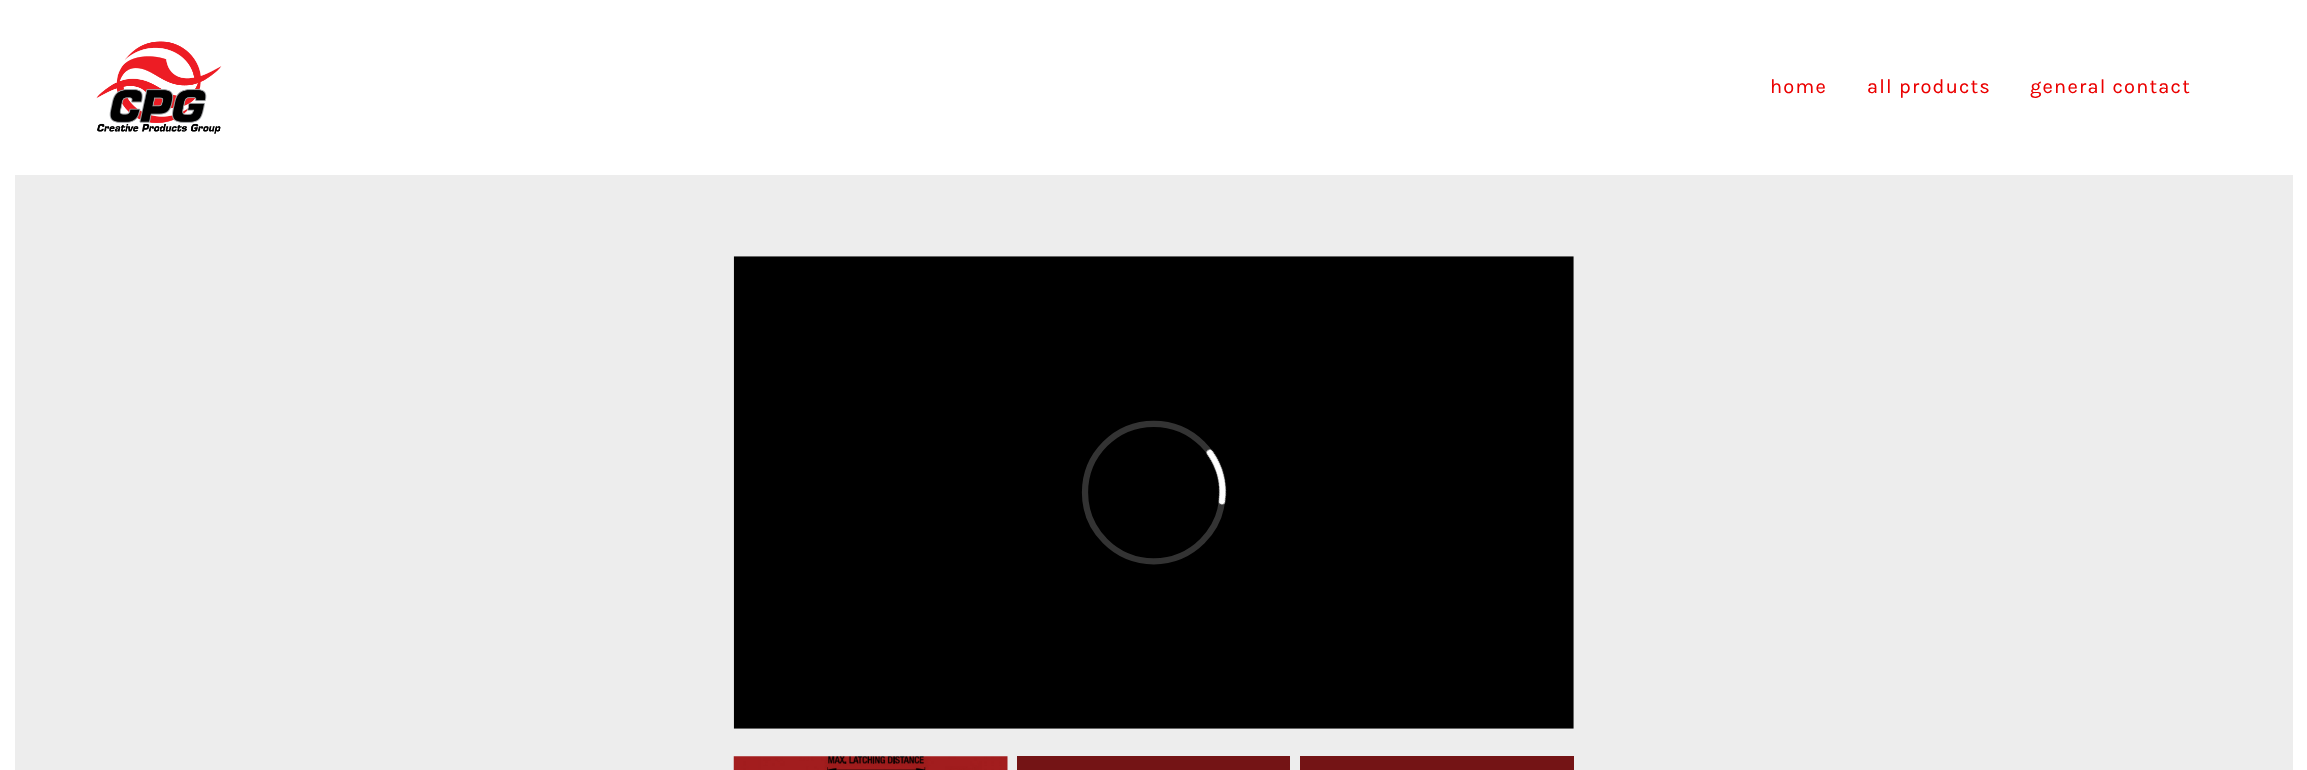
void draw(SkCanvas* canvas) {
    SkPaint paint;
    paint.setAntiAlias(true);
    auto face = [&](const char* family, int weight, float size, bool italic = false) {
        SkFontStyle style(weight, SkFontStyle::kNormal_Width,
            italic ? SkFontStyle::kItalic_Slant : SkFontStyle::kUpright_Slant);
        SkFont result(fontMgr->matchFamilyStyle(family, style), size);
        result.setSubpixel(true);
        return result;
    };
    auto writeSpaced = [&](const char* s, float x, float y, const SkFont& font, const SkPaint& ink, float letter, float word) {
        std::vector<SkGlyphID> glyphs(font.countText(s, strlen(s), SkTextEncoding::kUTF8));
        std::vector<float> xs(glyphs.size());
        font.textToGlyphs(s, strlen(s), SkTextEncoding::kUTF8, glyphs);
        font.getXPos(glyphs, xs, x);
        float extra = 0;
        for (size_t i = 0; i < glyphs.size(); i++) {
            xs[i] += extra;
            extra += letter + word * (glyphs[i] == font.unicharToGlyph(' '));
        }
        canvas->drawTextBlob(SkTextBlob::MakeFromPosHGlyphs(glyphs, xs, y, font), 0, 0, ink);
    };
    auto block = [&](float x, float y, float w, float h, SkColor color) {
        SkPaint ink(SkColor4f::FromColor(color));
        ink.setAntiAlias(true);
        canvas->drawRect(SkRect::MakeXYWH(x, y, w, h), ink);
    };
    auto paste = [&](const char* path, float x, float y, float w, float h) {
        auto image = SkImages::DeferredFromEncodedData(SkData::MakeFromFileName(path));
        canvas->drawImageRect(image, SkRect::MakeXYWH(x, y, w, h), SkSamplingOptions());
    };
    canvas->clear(SkColorSetRGB(237, 237, 237));
    block(2293, 0, 14, 770, SK_ColorWHITE);
    block(0, 0, 15, 770, SK_ColorWHITE);
    block(15, 0, 2278, 175, SK_ColorWHITE);
    paste("pic1.png", 96, 41, 126, 93);
    auto kFont1 = face("Karla", 400, 20);
    paint.setColor(SkColorSetRGB(235, 0, 0));
    writeSpaced("home", 1770, 93, kFont1, paint, 1.25f, 0);
    writeSpaced("all products", 1867, 93, kFont1, paint, 1.25f, 0);
    writeSpaced("general contact", 2030, 93, kFont1, paint, 1.25f, 0);
    paste("pic2.png", 733, 256, 841, 473);
    paste("pic3.png", 733, 756, 275, 14);
    block(1017, 756, 273, 14, SkColorSetRGB(116, 20, 21));
    block(1300, 756, 274, 14, SkColorSetRGB(116, 20, 21));
}
